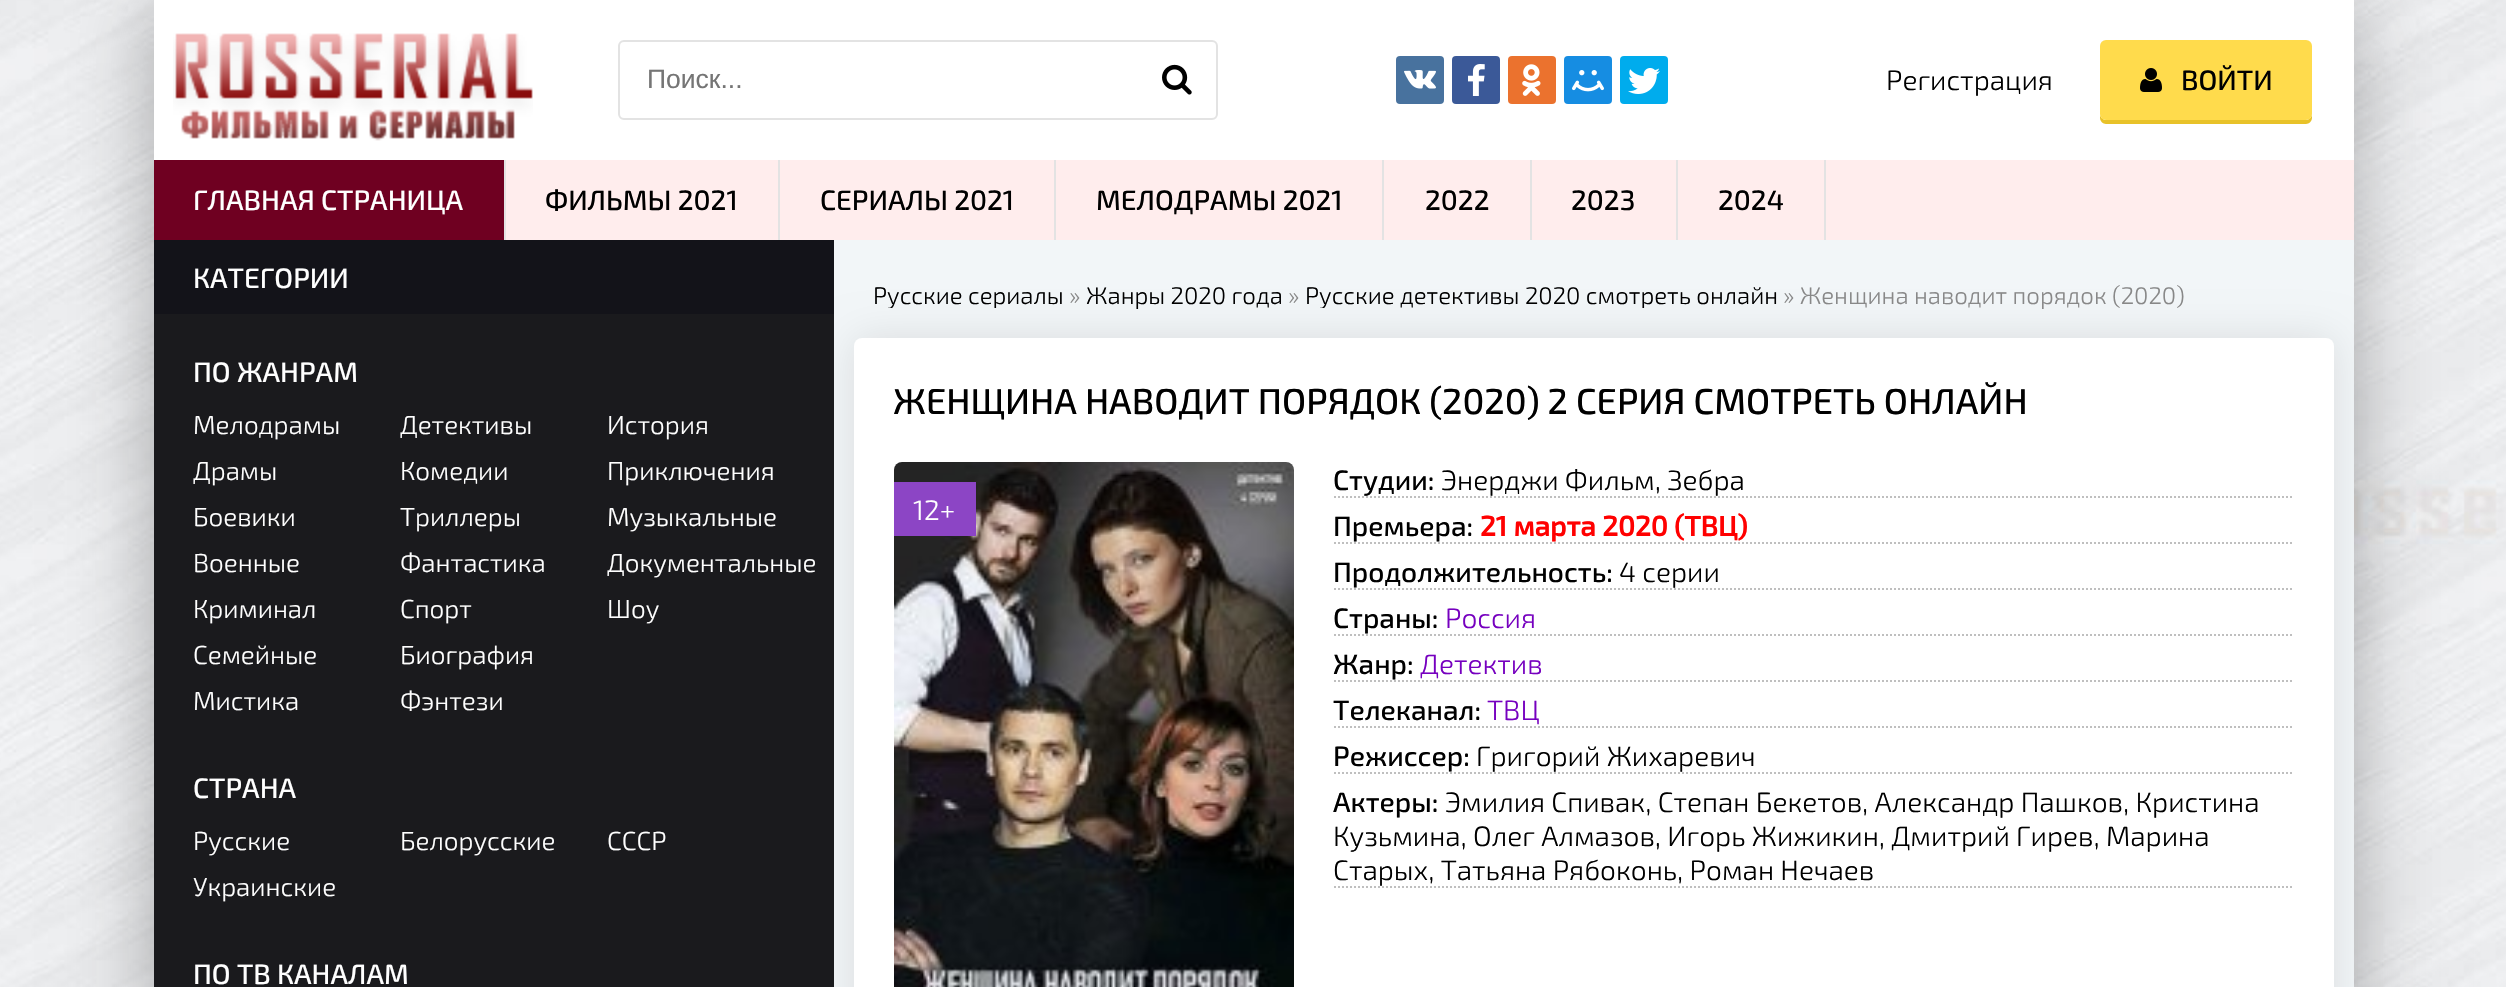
void draw(SkCanvas* canvas) {
    SkPaint paint;
    paint.setAntiAlias(true);
    auto face = [&](const char* family, int weight, float size, bool italic = false) {
        SkFontStyle style(weight, SkFontStyle::kNormal_Width,
            italic ? SkFontStyle::kItalic_Slant : SkFontStyle::kUpright_Slant);
        SkFont result(fontMgr->matchFamilyStyle(family, style), size);
        result.setSubpixel(true);
        return result;
    };
    auto write = [&](const char* s, float x, float y, const SkFont& font, SkColor color) {
        SkPaint ink(SkColor4f::FromColor(color));
        ink.setAntiAlias(true);
        canvas->drawString(s, x, y, font, ink);
    };
    auto block = [&](float x, float y, float w, float h, SkColor color) {
        SkPaint ink(SkColor4f::FromColor(color));
        ink.setAntiAlias(true);
        canvas->drawRect(SkRect::MakeXYWH(x, y, w, h), ink);
    };
    auto card = [&](float x, float y, float w, float h, float radius, SkColor color) {
        SkPaint ink(SkColor4f::FromColor(color));
        ink.setAntiAlias(true);
        canvas->drawRoundRect(SkRect::MakeXYWH(x, y, w, h), radius, radius, ink);
    };
    auto paste = [&](const char* path, float x, float y, float w, float h) {
        auto image = SkImages::DeferredFromEncodedData(SkData::MakeFromFileName(path));
        canvas->drawImageRect(image, SkRect::MakeXYWH(x, y, w, h), SkSamplingOptions());
    };
    canvas->clear(SK_ColorWHITE);
    paste("pic1.png", 0, 0, 2506, 987);
    paint.setColor(SkColorSetARGB(77, 0, 0, 0));
    paint.setMaskFilter(SkMaskFilter::MakeBlur(kNormal_SkBlurStyle, 40));
    canvas->drawRect(SkRect::MakeXYWH(154, 0, 2200, 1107), paint);
    paint.setMaskFilter(nullptr);
    block(834, 240, 1520, 747, SkColorSetRGB(242, 246, 248));
    block(154, 0, 2200, 160, SK_ColorWHITE);
    paste("pic2.png", 173, 33, 360, 108);
    paint.setStyle(SkPaint::kStroke_Style);
    paint.setStrokeWidth(2);
    paint.setColor(SkColorSetRGB(227, 227, 227));
    canvas->drawRoundRect(SkRect::MakeXYWH(619, 41, 598, 78), 5, 5, paint);
    auto kFont1 = face("Liberation Sans", 400, 26.5f);
    write("Поиск...", 647, 88, kFont1, SkColorSetRGB(117, 117, 117));
    paste("pic3.png", 1162, 64, 30, 31);
    card(1396, 56, 48, 48, 4, SkColorSetRGB(72, 114, 158));
    paste("pic4.png", 1404, 70, 32, 19);
    card(1452, 56, 48, 48, 4, SkColorSetRGB(59, 89, 152));
    paste("pic5.png", 1468, 64, 17, 32);
    card(1508, 56, 48, 48, 4, SkColorSetRGB(235, 114, 46));
    paste("pic6.png", 1522, 64, 19, 32);
    card(1564, 56, 48, 48, 4, SkColorSetRGB(22, 141, 226));
    paste("pic7.png", 1572, 70, 32, 22);
    card(1620, 56, 48, 48, 4, SkColorSetRGB(0, 172, 237));
    paste("pic8.png", 1628, 68, 32, 26);
    auto kFont2 = face("Exo 2", 300, 28);
    write("Регистрация", 1886, 90, kFont2, SK_ColorBLACK);
    paint.setStyle(SkPaint::kFill_Style);
    paint.setColor(SkColorSetRGB(232, 194, 41));
    canvas->drawPath(SkPathBuilder().moveTo(2100, 114).lineTo(2100, 118).cubicTo(2100, 121, 2103, 124, 2106, 124).lineTo(2306, 124).cubicTo(2309, 124, 2312, 121, 2312, 118).lineTo(2312, 114).cubicTo(2312, 117, 2309, 120, 2306, 120).lineTo(2106, 120).cubicTo(2103, 120, 2100, 117, 2100, 114).close().detach(), paint);
    card(2100, 40, 212, 80, 6, SkColorSetRGB(255, 219, 76));
    paste("pic9.png", 2140, 68, 22, 24);
    auto kFont3 = face("Exo 2", 500, 28);
    write("ВОЙТИ", 2181, 90, kFont3, SK_ColorBLACK);
    block(506, 160, 1848, 80, SkColorSetRGB(255, 237, 237));
    block(504, 160, 2, 80, SkColorSetRGB(227, 227, 227));
    block(154, 160, 350, 80, SkColorSetRGB(111, 0, 33));
    write("ГЛАВНАЯ СТРАНИЦА", 193, 210, kFont3, SK_ColorWHITE);
    block(778, 160, 2, 80, SkColorSetRGB(227, 227, 227));
    write("ФИЛЬМЫ 2021", 545, 210, kFont3, SK_ColorBLACK);
    block(1054, 160, 2, 80, SkColorSetRGB(227, 227, 227));
    write("СЕРИАЛЫ 2021", 820, 210, kFont3, SK_ColorBLACK);
    block(1382, 160, 2, 80, SkColorSetRGB(227, 227, 227));
    write("МЕЛОДРАМЫ 2021", 1096, 210, kFont3, SK_ColorBLACK);
    block(1530, 160, 2, 80, SkColorSetRGB(227, 227, 227));
    write("2022", 1425, 210, kFont3, SK_ColorBLACK);
    block(1676, 160, 2, 80, SkColorSetRGB(227, 227, 227));
    write("2023", 1571, 210, kFont3, SK_ColorBLACK);
    block(1824, 160, 2, 80, SkColorSetRGB(227, 227, 227));
    write("2024", 1718, 210, kFont3, SK_ColorBLACK);
    paint.setColor(SkColorSetARGB(26, 0, 0, 0));
    paint.setMaskFilter(SkMaskFilter::MakeBlur(kNormal_SkBlurStyle, 20));
    canvas->drawRoundRect(SkRect::MakeXYWH(854, 338, 1480, 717), 8, 8, paint);
    paint.setMaskFilter(nullptr);
    block(154, 314, 680, 673, SkColorSetRGB(26, 26, 29));
    block(154, 240, 680, 74, SkColorSetRGB(19, 19, 25));
    write("КАТЕГОРИИ", 193, 288, kFont3, SK_ColorWHITE);
    write("ПО ЖАНРАМ", 193, 382, kFont3, SK_ColorWHITE);
    auto kFont4 = face("Exo 2", 300, 26);
    write("Мелодрамы", 193, 434, kFont4, SK_ColorWHITE);
    write("Драмы", 193, 480, kFont4, SK_ColorWHITE);
    write("Боевики", 193, 526, kFont4, SK_ColorWHITE);
    write("Военные", 193, 572, kFont4, SK_ColorWHITE);
    write("Криминал", 193, 618, kFont4, SK_ColorWHITE);
    write("Семейные", 193, 664, kFont4, SK_ColorWHITE);
    write("Мистика", 193, 710, kFont4, SK_ColorWHITE);
    write("Детективы", 400, 434, kFont4, SK_ColorWHITE);
    write("Комедии", 400, 480, kFont4, SK_ColorWHITE);
    write("Триллеры", 400, 526, kFont4, SK_ColorWHITE);
    write("Фантастика", 400, 572, kFont4, SK_ColorWHITE);
    write("Спорт", 400, 618, kFont4, SK_ColorWHITE);
    write("Биография", 400, 664, kFont4, SK_ColorWHITE);
    write("Фэнтези", 400, 710, kFont4, SK_ColorWHITE);
    write("История", 607, 434, kFont4, SK_ColorWHITE);
    write("Приключения", 607, 480, kFont4, SK_ColorWHITE);
    write("Музыкальные", 607, 526, kFont4, SK_ColorWHITE);
    write("Документальные", 607, 572, kFont4, SK_ColorWHITE);
    write("Шоу", 607, 618, kFont4, SK_ColorWHITE);
    write("СТРАНА", 193, 798, kFont3, SK_ColorWHITE);
    write("Русские", 193, 850, kFont4, SK_ColorWHITE);
    write("Украинские", 193, 896, kFont4, SK_ColorWHITE);
    write("Белорусские", 400, 850, kFont4, SK_ColorWHITE);
    write("СССР", 607, 850, kFont4, SK_ColorWHITE);
    write("ПО ТВ КАНАЛАМ", 193, 984, kFont3, SK_ColorWHITE);
    canvas->save();
    canvas->clipRect(SkRect::MakeXYWH(874, 280, 1440, 28));
    auto kFont5 = face("Exo 2", 300, 24);
    write("Русские сериалы", 873, 304, kFont5, SK_ColorBLACK);
    canvas->restore();
    write("»", 1069, 304, kFont5, SkColorSetRGB(136, 136, 136));
    write("Жанры 2020 года", 1086, 304, kFont5, SK_ColorBLACK);
    write("»", 1288, 304, kFont5, SkColorSetRGB(136, 136, 136));
    canvas->save();
    canvas->clipRect(SkRect::MakeXYWH(874, 280, 1440, 28));
    write("Русские детективы 2020 смотреть онлайн", 1305, 304, kFont5, SK_ColorBLACK);
    canvas->restore();
    write("» Женщина наводит порядок (2020)", 1783, 304, kFont5, SkColorSetRGB(136, 136, 136));
    card(854, 338, 1480, 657, 8, SK_ColorWHITE);
    auto kFont6 = face("Exo 2", 500, 36);
    write("ЖЕНЩИНА НАВОДИТ ПОРЯДОК (2020) 2 СЕРИЯ СМОТРЕТЬ ОНЛАЙН", 893, 414, kFont6, SK_ColorBLACK);
    paste("pic10.png", 894, 462, 400, 525);
    block(894, 482, 82, 54, SkColorSetRGB(140, 69, 197));
    write("12+", 913, 520, kFont2, SK_ColorWHITE);
    paint.setStyle(SkPaint::kStroke_Style);
    paint.setColor(SkColorSetRGB(191, 191, 191));
    paint.setPathEffect(SkDashPathEffect::Make({{2, 2}}, 0));
    canvas->drawPath(SkPathBuilder().moveTo(1334, 497).lineTo(2294, 497).detach(), paint);
    paint.setPathEffect(nullptr);
    write("Студии:", 1333, 490, kFont3, SK_ColorBLACK);
    write("Энерджи Фильм, Зебра", 1441, 490, kFont2, SK_ColorBLACK);
    paint.setPathEffect(SkDashPathEffect::Make({{2, 2}}, 0));
    canvas->drawPath(SkPathBuilder().moveTo(1334, 543).lineTo(2294, 543).detach(), paint);
    paint.setPathEffect(nullptr);
    write("Премьера:", 1333, 536, kFont3, SK_ColorBLACK);
    auto kFont7 = face("Exo 2", 700, 28);
    write("21 марта 2020 (ТВЦ)", 1480, 536, kFont7, SkColorSetRGB(255, 0, 0));
    paint.setPathEffect(SkDashPathEffect::Make({{2, 2}}, 0));
    canvas->drawPath(SkPathBuilder().moveTo(1334, 589).lineTo(2294, 589).detach(), paint);
    paint.setPathEffect(nullptr);
    write("Продолжительность:", 1333, 582, kFont3, SK_ColorBLACK);
    write("4 серии", 1619, 582, kFont2, SK_ColorBLACK);
    paint.setPathEffect(SkDashPathEffect::Make({{2, 2}}, 0));
    canvas->drawPath(SkPathBuilder().moveTo(1334, 635).lineTo(2294, 635).detach(), paint);
    paint.setPathEffect(nullptr);
    write("Страны:", 1333, 628, kFont3, SK_ColorBLACK);
    write("Россия", 1445, 628, kFont2, SkColorSetRGB(118, 0, 191));
    paint.setPathEffect(SkDashPathEffect::Make({{2, 2}}, 0));
    canvas->drawPath(SkPathBuilder().moveTo(1334, 681).lineTo(2294, 681).detach(), paint);
    paint.setPathEffect(nullptr);
    write("Жанр:", 1333, 674, kFont3, SK_ColorBLACK);
    write("Детектив", 1420, 674, kFont2, SkColorSetRGB(118, 0, 191));
    paint.setPathEffect(SkDashPathEffect::Make({{2, 2}}, 0));
    canvas->drawPath(SkPathBuilder().moveTo(1334, 727).lineTo(2294, 727).detach(), paint);
    paint.setPathEffect(nullptr);
    write("Телеканал:", 1333, 720, kFont3, SK_ColorBLACK);
    write("ТВЦ", 1487, 720, kFont2, SkColorSetRGB(118, 0, 191));
    paint.setPathEffect(SkDashPathEffect::Make({{2, 2}}, 0));
    canvas->drawPath(SkPathBuilder().moveTo(1334, 773).lineTo(2294, 773).detach(), paint);
    paint.setPathEffect(nullptr);
    write("Режиссер:", 1333, 766, kFont3, SK_ColorBLACK);
    write("Григорий Жихаревич", 1476, 766, kFont2, SK_ColorBLACK);
    paint.setPathEffect(SkDashPathEffect::Make({{2, 2}}, 0));
    canvas->drawPath(SkPathBuilder().moveTo(1334, 887).lineTo(2294, 887).detach(), paint);
    paint.setPathEffect(nullptr);
    write("Актеры:", 1333, 812, kFont3, SK_ColorBLACK);
    write("Эмилия Спивак, Степан Бекетов, Александр Пашков, Кристина", 1445, 812, kFont2, SK_ColorBLACK);
    write("Кузьмина, Олег Алмазов, Игорь Жижикин, Дмитрий Гирев, Марина", 1333, 846, kFont2, SK_ColorBLACK);
    write("Старых, Татьяна Рябоконь, Роман Нечаев", 1333, 880, kFont2, SK_ColorBLACK);
}
